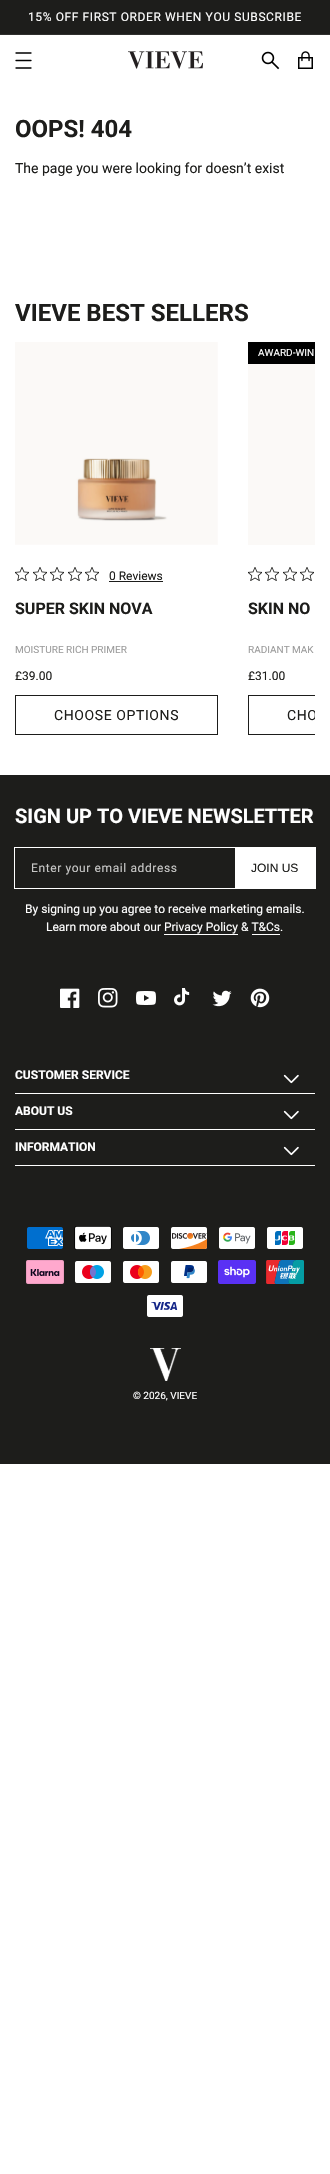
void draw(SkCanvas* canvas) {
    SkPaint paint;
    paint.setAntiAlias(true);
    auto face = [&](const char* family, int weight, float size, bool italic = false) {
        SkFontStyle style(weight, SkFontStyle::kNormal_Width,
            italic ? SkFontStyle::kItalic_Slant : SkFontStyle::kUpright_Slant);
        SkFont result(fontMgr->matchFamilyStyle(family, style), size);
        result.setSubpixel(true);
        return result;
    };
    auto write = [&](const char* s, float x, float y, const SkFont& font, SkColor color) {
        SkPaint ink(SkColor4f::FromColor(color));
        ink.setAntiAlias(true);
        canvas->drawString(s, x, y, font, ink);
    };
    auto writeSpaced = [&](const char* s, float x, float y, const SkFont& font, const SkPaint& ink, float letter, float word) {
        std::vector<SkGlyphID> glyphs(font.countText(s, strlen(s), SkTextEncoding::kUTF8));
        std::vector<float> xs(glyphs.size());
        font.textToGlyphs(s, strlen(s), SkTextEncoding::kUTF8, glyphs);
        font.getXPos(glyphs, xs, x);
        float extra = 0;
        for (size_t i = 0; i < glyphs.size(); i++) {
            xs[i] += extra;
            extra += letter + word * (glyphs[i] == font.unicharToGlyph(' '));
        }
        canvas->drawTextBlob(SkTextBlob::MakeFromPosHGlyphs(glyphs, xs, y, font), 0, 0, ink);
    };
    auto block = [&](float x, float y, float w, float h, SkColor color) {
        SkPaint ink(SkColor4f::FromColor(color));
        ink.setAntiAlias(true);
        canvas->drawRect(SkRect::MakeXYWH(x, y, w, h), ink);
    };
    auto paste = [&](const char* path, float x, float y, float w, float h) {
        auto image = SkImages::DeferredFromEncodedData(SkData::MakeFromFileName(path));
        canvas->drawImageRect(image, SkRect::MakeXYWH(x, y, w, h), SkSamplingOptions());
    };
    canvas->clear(SK_ColorWHITE);
    block(0, 0, 330, 34, SkColorSetRGB(29, 29, 27));
    block(0, 34, 330, 1, SkColorSetRGB(47, 47, 45));
    auto kFont1 = face("Roboto", 400, 12);
    paint.setColor(SK_ColorWHITE);
    writeSpaced("15% OFF FIRST ORDER WHEN YOU SUBSCRIBE", 28, 21, kFont1, paint, 0.6f, 0);
    paint.setStyle(SkPaint::kStroke_Style);
    paint.setStrokeWidth(1.3f);
    paint.setStrokeCap(SkPaint::kRound_Cap);
    paint.setStrokeJoin(SkPaint::kRound_Join);
    paint.setColor(SK_ColorBLACK);
    canvas->drawPath(SkPathBuilder().moveTo(16, 53).lineTo(31, 53).moveTo(16, 60.5f).lineTo(31, 60.5f).moveTo(16, 68).lineTo(31, 68).detach(), paint);
    paste("pic1.png", 128, 51, 75, 18);
    paste("pic2.png", 261, 51, 19, 19);
    paste("pic3.png", 298, 51, 15, 18);
    auto kFont2 = face("Roboto", 700, 24);
    write("OOPS! 404", 15, 137, kFont2, SkColorSetRGB(29, 29, 27));
    auto kFont3 = face("Roboto", 400, 14);
    write("The page you were looking for doesn’t exist", 15, 173, kFont3, SkColorSetRGB(29, 29, 27));
    write("VIEVE BEST SELLERS", 15, 321, kFont2, SkColorSetRGB(29, 29, 27));
    paste("pic4.png", 15, 342, 203, 203);
    paste("pic5.png", 15, 567, 14, 14);
    paste("pic5.png", 33, 567, 14, 14);
    paste("pic5.png", 50, 567, 14, 14);
    paste("pic5.png", 68, 567, 14, 14);
    paste("pic5.png", 85, 567, 14, 14);
    write("0 Reviews", 109, 580, kFont1, SkColorSetRGB(29, 29, 27));
    block(109, 581, 54, 1, SkColorSetRGB(29, 29, 27));
    auto kFont4 = face("Roboto", 700, 16);
    write("SUPER SKIN NOVA", 15, 614, kFont4, SkColorSetRGB(29, 29, 27));
    auto kFont5 = face("Roboto", 400, 10);
    write("MOISTURE RICH PRIMER", 15, 653, kFont5, SkColorSetRGB(156, 156, 156));
    write("£39.00", 15, 680, kFont1, SkColorSetRGB(29, 29, 27));
    paint.setStrokeWidth(1);
    paint.setStrokeCap(SkPaint::kButt_Cap);
    paint.setStrokeJoin(SkPaint::kMiter_Join);
    paint.setColor(SkColorSetRGB(29, 29, 27));
    canvas->drawRect(SkRect::MakeXYWH(15.5f, 695.5f, 202, 39), paint);
    paint.setStyle(SkPaint::kFill_Style);
    writeSpaced("CHOOSE OPTIONS", 54, 720, kFont3, paint, 0.6f, 0);
    block(248, 342, 67, 22, SK_ColorBLACK);
    write("AWARD-WIN", 258, 356, kFont5, SK_ColorWHITE);
    block(248, 364, 67, 181, SkColorSetRGB(251, 249, 247));
    paste("pic5.png", 248, 567, 14, 14);
    paste("pic5.png", 265, 567, 14, 14);
    paste("pic5.png", 283, 567, 14, 14);
    paste("pic5.png", 300, 567, 14, 14);
    write("SKIN NO", 248, 614, kFont4, SkColorSetRGB(29, 29, 27));
    write("RADIANT MAK", 248, 653, kFont5, SkColorSetRGB(156, 156, 156));
    write("£31.00", 248, 680, kFont1, SkColorSetRGB(29, 29, 27));
    canvas->save();
    canvas->clipRect(SkRect::MakeXYWH(15, 342, 300, 393));
    paint.setStyle(SkPaint::kStroke_Style);
    canvas->drawRect(SkRect::MakeXYWH(248.5f, 695.5f, 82, 39), paint);
    paint.setStyle(SkPaint::kFill_Style);
    writeSpaced("CHO", 287, 720, kFont3, paint, 0.6f, 0);
    canvas->restore();
    block(0, 775, 330, 689, SkColorSetRGB(29, 29, 27));
    auto kFont6 = face("Roboto", 700, 20);
    write("SIGN UP TO VIEVE NEWSLETTER", 15, 823, kFont6, SK_ColorWHITE);
    paint.setStyle(SkPaint::kStroke_Style);
    paint.setColor(SK_ColorWHITE);
    canvas->drawRect(SkRect::MakeXYWH(14.5f, 847.5f, 301, 41), paint);
    paint.setStyle(SkPaint::kFill_Style);
    paint.setColor(SkColorSetRGB(199, 199, 198));
    writeSpaced("Enter your email address", 31, 872, kFont1, paint, 0.6f, 0);
    block(235, 848, 80, 40, SK_ColorWHITE);
    auto kFont7 = face("Liberation Sans", 400, 12);
    write("JOIN US", 251, 872, kFont7, SkColorSetRGB(29, 29, 27));
    write("By signing up you agree to receive marketing emails.", 25, 913, kFont1, SK_ColorWHITE);
    write("Learn more about our Privacy Policy & T&Cs.", 46, 931, kFont1, SK_ColorWHITE);
    block(164, 934, 74, 1, SK_ColorWHITE);
    block(252, 934, 28, 1, SK_ColorWHITE);
    paste("pic6.png", 60, 988, 20, 20);
    paste("pic7.png", 98, 988, 20, 20);
    paste("pic8.png", 136, 991, 20, 14);
    paste("pic9.png", 174, 988, 16, 18);
    paste("pic10.png", 212, 990, 20, 17);
    paste("pic11.png", 250, 988, 20, 20);
    block(15, 1093, 300, 1, SK_ColorWHITE);
    auto kFont8 = face("Roboto", 700, 12);
    write("CUSTOMER SERVICE", 15, 1079, kFont8, SK_ColorWHITE);
    paste("pic12.png", 283, 1074, 16, 10);
    block(15, 1129, 300, 1, SK_ColorWHITE);
    write("ABOUT US", 15, 1115, kFont8, SK_ColorWHITE);
    paste("pic12.png", 283, 1110, 16, 10);
    block(15, 1165, 300, 1, SK_ColorWHITE);
    write("INFORMATION", 15, 1151, kFont8, SK_ColorWHITE);
    paste("pic12.png", 283, 1146, 16, 10);
    paste("pic13.png", 27, 1227, 36, 22);
    paste("pic14.png", 74, 1226, 38, 24);
    paste("pic15.png", 123, 1227, 36, 22);
    paste("pic16.png", 171, 1227, 36, 22);
    paste("pic17.png", 219, 1227, 36, 22);
    paste("pic18.png", 267, 1227, 36, 22);
    paste("pic19.png", 26, 1260, 38, 24);
    paste("pic20.png", 75, 1261, 36, 22);
    paste("pic21.png", 123, 1261, 36, 22);
    paste("pic22.png", 171, 1261, 36, 22);
    paste("pic23.png", 218, 1260, 38, 24);
    paste("pic24.png", 266, 1260, 38, 24);
    paste("pic25.png", 147, 1295, 36, 22);
    paste("pic26.png", 150, 1348, 31, 33);
    write("© 2026, VIEVE", 133, 1399, kFont5, SK_ColorWHITE);
}
